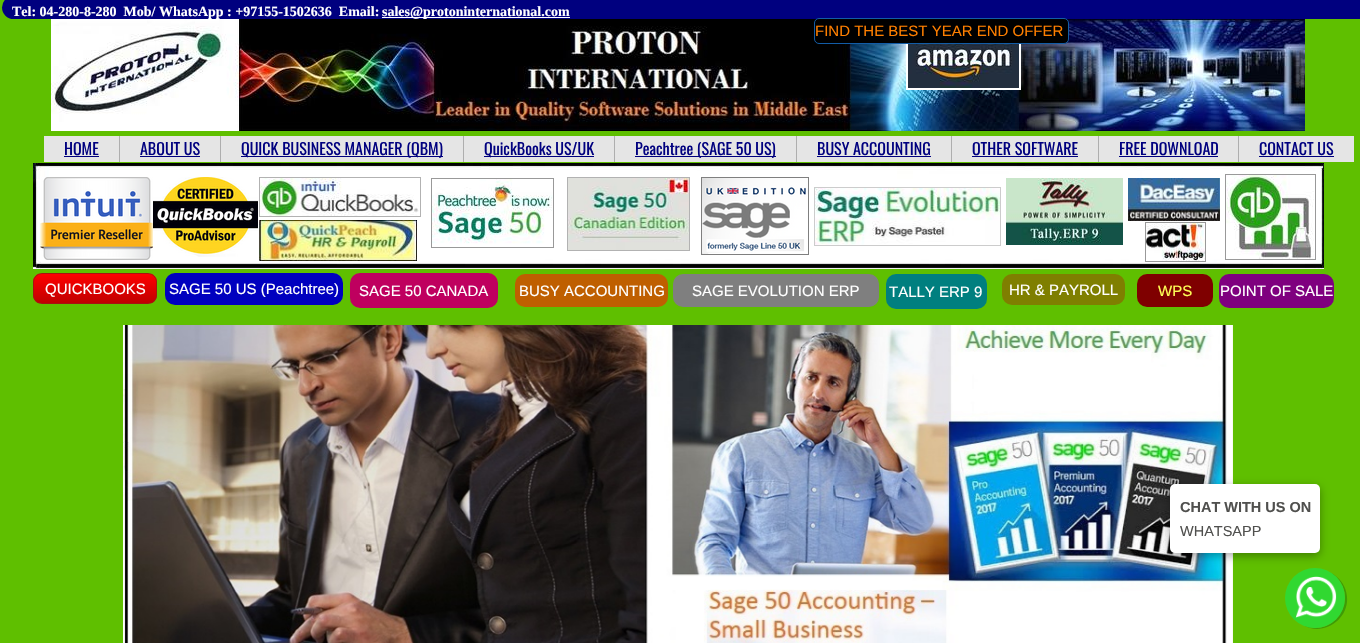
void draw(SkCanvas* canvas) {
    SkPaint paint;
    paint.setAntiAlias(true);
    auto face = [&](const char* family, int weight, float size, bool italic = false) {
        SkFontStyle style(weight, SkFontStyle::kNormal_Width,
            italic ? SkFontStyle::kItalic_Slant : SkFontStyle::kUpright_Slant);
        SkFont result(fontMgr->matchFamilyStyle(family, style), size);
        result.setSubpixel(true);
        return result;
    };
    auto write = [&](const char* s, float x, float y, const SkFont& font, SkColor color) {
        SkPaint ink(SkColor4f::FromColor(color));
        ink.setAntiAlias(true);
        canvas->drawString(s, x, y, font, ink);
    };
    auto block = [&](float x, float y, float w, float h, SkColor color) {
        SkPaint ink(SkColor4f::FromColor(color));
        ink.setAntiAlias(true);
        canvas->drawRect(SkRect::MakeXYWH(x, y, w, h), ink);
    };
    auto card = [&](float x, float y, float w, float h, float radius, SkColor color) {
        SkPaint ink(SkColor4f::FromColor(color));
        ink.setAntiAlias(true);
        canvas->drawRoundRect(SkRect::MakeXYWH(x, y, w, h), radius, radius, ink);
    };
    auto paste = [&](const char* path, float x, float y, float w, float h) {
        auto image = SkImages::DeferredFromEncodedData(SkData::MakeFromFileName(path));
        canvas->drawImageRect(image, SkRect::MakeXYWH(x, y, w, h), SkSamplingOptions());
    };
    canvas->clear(SkColorSetRGB(95, 191, 0));
    card(2, -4, 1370, 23, 11.5f, SkColorSetRGB(0, 0, 127));
    auto kFont1 = face("Liberation Serif", 700, 14);
    write("Tel: 04-280-8-280  Mob/ WhatsApp : +97155-1502636  Email:", 12, 16, kFont1, SK_ColorWHITE);
    block(382, 17, 188, 1, SK_ColorWHITE);
    write("sales@protoninternational.com", 382, 16, kFont1, SK_ColorWHITE);
    paste("pic1.png", 51, 19, 1254, 112);
    paint.setStyle(SkPaint::kStroke_Style);
    paint.setStrokeWidth(2);
    paint.setColor(SK_ColorWHITE);
    canvas->drawRect(SkRect::MakeXYWH(907, 25, 113, 64), paint);
    paste("pic2.png", 908, 44, 111, 44);
    paint.setStyle(SkPaint::kFill_Style);
    paint.setColor(SK_ColorBLACK);
    canvas->drawRoundRect(SkRect::MakeXYWH(814.5f, 18.5f, 254, 25), 4.5f, 4.5f, paint);
    paint.setStyle(SkPaint::kStroke_Style);
    paint.setStrokeWidth(1);
    paint.setColor(SkColorSetRGB(18, 92, 166));
    canvas->drawRoundRect(SkRect::MakeXYWH(814.5f, 18.5f, 254, 25), 4.5f, 4.5f, paint);
    auto kFont2 = face("Liberation Sans", 400, 15);
    write("FIND THE BEST YEAR END OFFER", 815, 36, kFont2, SkColorSetRGB(255, 127, 0));
    block(44, 136, 75, 26, SkColorSetRGB(229, 229, 229));
    block(119, 136, 1, 26, SkColorSetRGB(174, 174, 174));
    auto kFont3 = face("Oswald", 400, 16);
    write("HOME", 64, 155, kFont3, SkColorSetRGB(0, 0, 127));
    block(64, 156, 35, 1, SkColorSetRGB(0, 0, 127));
    block(120, 136, 100, 26, SkColorSetRGB(229, 229, 229));
    block(220, 136, 1, 26, SkColorSetRGB(174, 174, 174));
    write("ABOUT US", 140, 155, kFont3, SkColorSetRGB(0, 0, 127));
    block(140, 156, 60, 1, SkColorSetRGB(0, 0, 127));
    block(221, 136, 242, 26, SkColorSetRGB(229, 229, 229));
    block(463, 136, 1, 26, SkColorSetRGB(174, 174, 174));
    block(241, 156, 202, 1, SkColorSetRGB(0, 0, 127));
    write("QUICK BUSINESS MANAGER (QBM)", 241, 155, kFont3, SkColorSetRGB(0, 0, 127));
    block(464, 136, 150, 26, SkColorSetRGB(229, 229, 229));
    block(614, 136, 1, 26, SkColorSetRGB(174, 174, 174));
    block(484, 156, 110, 1, SkColorSetRGB(0, 0, 127));
    write("QuickBooks US/UK", 484, 155, kFont3, SkColorSetRGB(0, 0, 127));
    block(615, 136, 181, 26, SkColorSetRGB(229, 229, 229));
    block(796, 136, 1, 26, SkColorSetRGB(174, 174, 174));
    block(635, 156, 141, 1, SkColorSetRGB(0, 0, 127));
    write("Peachtree (SAGE 50 US)", 635, 155, kFont3, SkColorSetRGB(0, 0, 127));
    block(797, 136, 154, 26, SkColorSetRGB(229, 229, 229));
    block(951, 136, 1, 26, SkColorSetRGB(174, 174, 174));
    write("BUSY ACCOUNTING", 817, 155, kFont3, SkColorSetRGB(0, 0, 127));
    block(817, 156, 114, 1, SkColorSetRGB(0, 0, 127));
    block(952, 136, 146, 26, SkColorSetRGB(229, 229, 229));
    block(1098, 136, 1, 26, SkColorSetRGB(174, 174, 174));
    write("OTHER SOFTWARE", 972, 155, kFont3, SkColorSetRGB(0, 0, 127));
    block(972, 156, 106, 1, SkColorSetRGB(0, 0, 127));
    block(1099, 136, 139, 26, SkColorSetRGB(229, 229, 229));
    block(1238, 136, 1, 26, SkColorSetRGB(174, 174, 174));
    write("FREE DOWNLOAD", 1119, 155, kFont3, SkColorSetRGB(0, 0, 127));
    block(1119, 156, 99, 1, SkColorSetRGB(0, 0, 127));
    block(1239, 136, 115, 26, SkColorSetRGB(229, 229, 229));
    write("CONTACT US", 1259, 155, kFont3, SkColorSetRGB(0, 0, 127));
    block(1259, 156, 75, 1, SkColorSetRGB(0, 0, 127));
    paste("pic3.png", 33, 163, 1291, 106);
    paste("pic4.png", 40, 177, 113, 83);
    paste("pic5.png", 153, 177, 105, 80);
    paint.setColor(SkColorSetRGB(178, 178, 178));
    canvas->drawRect(SkRect::MakeXYWH(259.5f, 177.5f, 161, 39), paint);
    paste("pic6.png", 260, 178, 159, 38);
    paint.setColor(SkColorSetRGB(153, 153, 153));
    canvas->drawRect(SkRect::MakeXYWH(431.5f, 178.5f, 122, 69), paint);
    paste("pic7.png", 432, 179, 121, 65);
    paint.setColor(SkColorSetRGB(178, 178, 178));
    canvas->drawRect(SkRect::MakeXYWH(567.5f, 177.5f, 122, 73), paint);
    paste("pic8.png", 568, 178, 121, 72);
    paint.setColor(SkColorSetRGB(127, 127, 127));
    canvas->drawRect(SkRect::MakeXYWH(701.5f, 177.5f, 107, 77), paint);
    paste("pic9.png", 702, 178, 106, 76);
    paint.setColor(SkColorSetRGB(204, 204, 204));
    canvas->drawRect(SkRect::MakeXYWH(814.5f, 187.5f, 186, 58), paint);
    paste("pic10.png", 815, 188, 185, 57);
    paste("pic11.png", 1006, 178, 117, 67);
    paste("pic12.png", 1128, 178, 92, 43);
    paint.setColor(SkColorSetRGB(153, 153, 153));
    canvas->drawRect(SkRect::MakeXYWH(1225.5f, 174.5f, 90, 85), paint);
    paste("pic13.png", 1226, 175, 88, 84);
    paste("pic14.png", 259, 220, 158, 41);
    canvas->drawRect(SkRect::MakeXYWH(1145.5f, 222.5f, 60, 39), paint);
    paste("pic15.png", 1146, 223, 59, 38);
    canvas->save();
    canvas->clipPath(SkPathBuilder().moveTo(42, 273).lineTo(148, 273).cubicTo(153, 273, 157, 277, 157, 282).lineTo(157, 295).cubicTo(157, 300, 153, 304, 148, 304).lineTo(42, 304).cubicTo(37, 304, 33, 300, 33, 295).lineTo(33, 282).cubicTo(33, 277, 37, 273, 42, 273).close().detach(), true);
    paint.setStyle(SkPaint::kFill_Style);
    {
        const SkColor colors[] = {SkColorSetRGB(255, 0, 0), SkColorSetRGB(192, 0, 0)};
        const float stops[] = {0, 1};
        const SkPoint ends[] = {{95, 274}, {95, 303}};
        paint.setShader(SkGradientShader::MakeLinear(ends, colors, stops, 2, SkTileMode::kClamp));
        paint.setAlpha(255);
    }
    canvas->drawRect(SkRect::MakeXYWH(33, 274, 124, 29), paint);
    canvas->restore();
    paint.setStyle(SkPaint::kStroke_Style);
    paint.setShader(nullptr);
    paint.setColor(SkColorSetRGB(166, 18, 18));
    canvas->drawRoundRect(SkRect::MakeXYWH(33.5f, 273.5f, 123, 30), 8.5f, 8.5f, paint);
    write("QUICKBOOKS", 45, 294, kFont2, SK_ColorWHITE);
    card(165, 273, 178, 32, 10, SkColorSetRGB(0, 0, 191));
    write("SAGE 50 US (Peachtree)", 169, 294, kFont2, SK_ColorWHITE);
    card(350, 273, 148, 35, 10, SkColorSetRGB(191, 0, 95));
    write("SAGE 50 CANADA", 359, 296, kFont2, SK_ColorWHITE);
    card(515, 274, 153, 33, 10, SkColorSetRGB(191, 95, 0));
    write("BUSY ACCOUNTING", 519, 296, kFont2, SK_ColorWHITE);
    card(673, 274, 206, 33, 10, SkColorSetRGB(127, 127, 127));
    write("SAGE EVOLUTION ERP", 692, 296, kFont2, SK_ColorWHITE);
    card(886, 274, 101, 35, 10, SkColorSetRGB(0, 127, 127));
    write("TALLY ERP 9", 889, 297, kFont2, SK_ColorWHITE);
    card(1002, 274, 123, 31, 10, SkColorSetRGB(127, 127, 0));
    write("HR & PAYROLL", 1009, 295, kFont2, SK_ColorWHITE);
    card(1137, 274, 76, 33, 10, SkColorSetRGB(127, 0, 0));
    write("WPS", 1158, 296, kFont2, SkColorSetRGB(255, 255, 86));
    card(1219, 274, 115, 34, 10, SkColorSetRGB(127, 0, 127));
    write("POINT OF SALE", 1220, 296, kFont2, SK_ColorWHITE);
    paste("pic16.png", 123, 325, 1110, 318);
    paint.setStyle(SkPaint::kFill_Style);
    paint.setColor(SkColorSetARGB(87, 0, 0, 0));
    paint.setMaskFilter(SkMaskFilter::MakeBlur(kNormal_SkBlurStyle, 5));
    canvas->drawRoundRect(SkRect::MakeXYWH(1170, 487, 150, 69), 5, 5, paint);
    paint.setMaskFilter(nullptr);
    card(1170, 484, 150, 69, 5, SK_ColorWHITE);
    auto kFont4 = face("Liberation Sans", 700, 14.5f);
    write("CHAT WITH US ON", 1180, 512, kFont4, SkColorSetRGB(80, 80, 78));
    auto kFont5 = face("Liberation Sans", 400, 14.5f);
    write("WHATSAPP", 1180, 536, kFont5, SkColorSetRGB(80, 80, 78));
    paint.setColor(SkColorSetRGB(63, 155, 5));
    canvas->drawPath(SkPathBuilder().moveTo(1303, 625).cubicTo(1327, 639, 1357, 613, 1344, 586).cubicTo(1341, 580, 1336, 575, 1329, 572).cubicTo(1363, 590, 1337, 641, 1303, 625).close().detach(), paint);
    paint.setColor(SkColorSetRGB(49, 216, 49));
    canvas->drawCircle(1315, 598, 30, paint);
    paste("pic17.png", 1295, 576, 42, 42);
}
